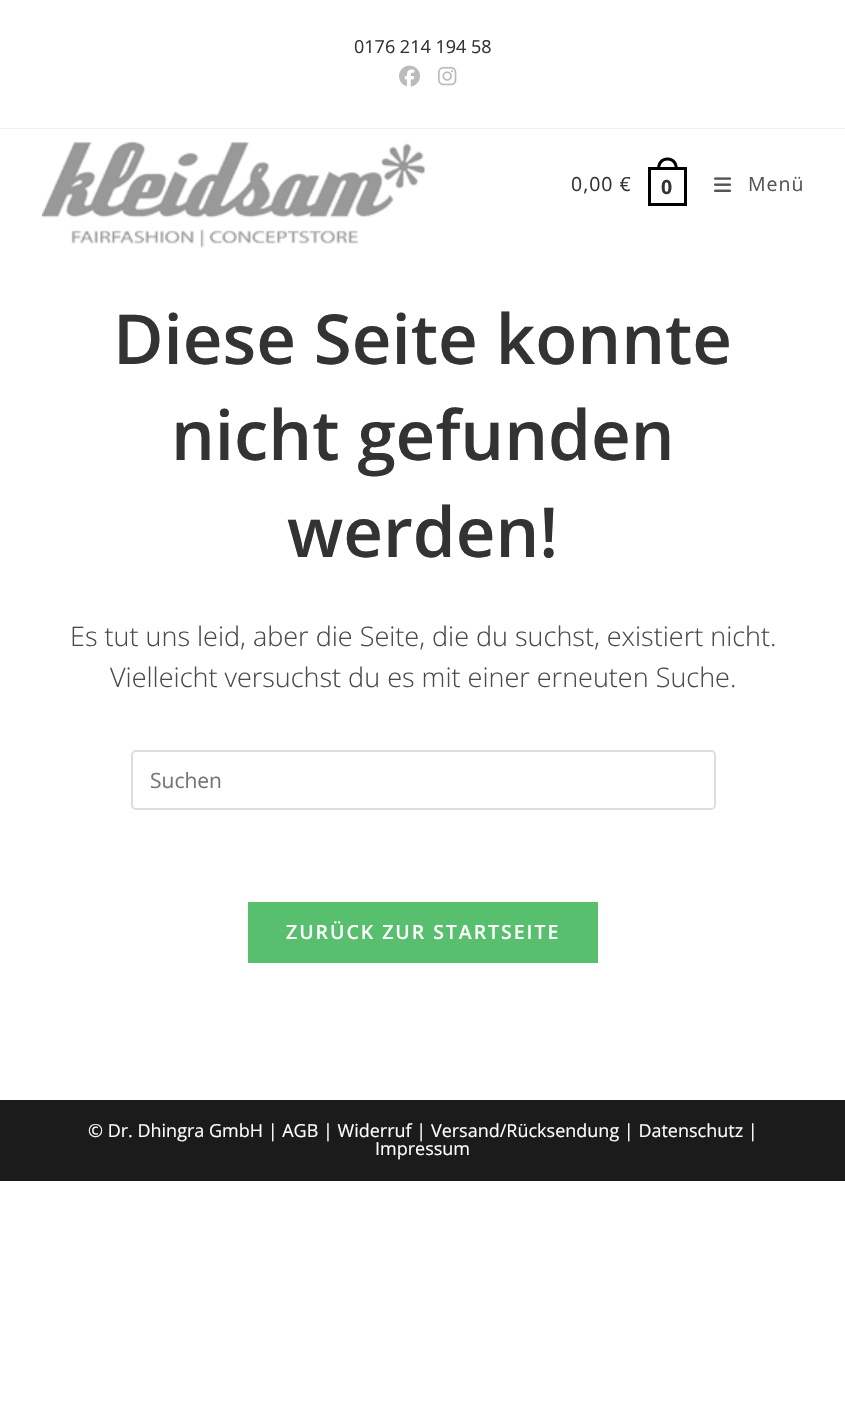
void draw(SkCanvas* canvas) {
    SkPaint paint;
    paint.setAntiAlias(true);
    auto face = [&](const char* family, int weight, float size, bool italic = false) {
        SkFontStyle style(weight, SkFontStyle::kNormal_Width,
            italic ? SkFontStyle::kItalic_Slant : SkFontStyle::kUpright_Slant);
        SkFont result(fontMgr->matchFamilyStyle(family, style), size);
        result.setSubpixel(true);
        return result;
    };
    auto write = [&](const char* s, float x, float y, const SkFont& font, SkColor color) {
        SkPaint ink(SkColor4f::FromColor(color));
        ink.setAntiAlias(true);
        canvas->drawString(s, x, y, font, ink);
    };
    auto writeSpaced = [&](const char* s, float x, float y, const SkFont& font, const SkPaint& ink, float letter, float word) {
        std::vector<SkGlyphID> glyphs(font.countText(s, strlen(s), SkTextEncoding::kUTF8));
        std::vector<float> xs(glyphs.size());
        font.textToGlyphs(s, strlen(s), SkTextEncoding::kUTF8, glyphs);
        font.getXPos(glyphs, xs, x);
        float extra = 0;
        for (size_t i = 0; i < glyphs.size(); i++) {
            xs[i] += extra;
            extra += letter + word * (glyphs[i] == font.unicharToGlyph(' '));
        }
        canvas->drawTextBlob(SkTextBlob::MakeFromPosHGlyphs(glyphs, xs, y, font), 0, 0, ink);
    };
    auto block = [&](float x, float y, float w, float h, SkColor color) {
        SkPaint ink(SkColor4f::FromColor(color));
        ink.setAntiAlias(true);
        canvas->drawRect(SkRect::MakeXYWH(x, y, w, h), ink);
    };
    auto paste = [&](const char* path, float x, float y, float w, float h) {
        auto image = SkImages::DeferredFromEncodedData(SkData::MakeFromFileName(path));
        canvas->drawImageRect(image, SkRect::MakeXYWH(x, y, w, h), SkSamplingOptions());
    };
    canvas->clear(SK_ColorWHITE);
    block(0, 128, 845, 1, SkColorSetRGB(241, 241, 241));
    auto kFont1 = face("Open Sans", 400, 18);
    write("0176 214 194 58", 354, 53, kFont1, SkColorSetRGB(51, 51, 51));
    paste("pic1.png", 399, 65, 21, 22);
    paste("pic2.png", 438, 66, 19, 20);
    paste("pic3.png", 42, 141, 383, 107);
    auto kFont2 = face("Open Sans", 400, 19.5f);
    paint.setColor(SkColorSetRGB(51, 51, 51));
    writeSpaced("0,00 €", 571, 191, kFont2, paint, 1, 0);
    paint.setStyle(SkPaint::kStroke_Style);
    paint.setStrokeWidth(3);
    paint.setColor(SK_ColorBLACK);
    canvas->drawRect(SkRect::MakeXYWH(649.5f, 168.5f, 36, 36), paint);
    paint.setStyle(SkPaint::kFill_Style);
    canvas->drawPath(SkPathBuilder(SkPathFillType::kEvenOdd).moveTo(667.5f, 157.5f).cubicTo(674.5f, 157.5f, 678, 163, 678, 169.5f).lineTo(657, 169.5f).cubicTo(657, 163, 660.5f, 157.5f, 667.5f, 157.5f).close().moveTo(667.5f, 160.5f).cubicTo(673, 160.5f, 675, 165, 675, 169.5f).lineTo(660, 169.5f).cubicTo(660, 165, 662, 160.5f, 667.5f, 160.5f).close().detach(), paint);
    auto kFont3 = face("Open Sans", 700, 19.5f);
    paint.setColor(SkColorSetRGB(51, 51, 51));
    writeSpaced("0", 661, 194, kFont3, paint, 1, 0);
    paste("pic4.png", 714, 177, 17, 15);
    paint.setColor(SkColorSetRGB(85, 85, 85));
    writeSpaced("Menü", 748, 191, kFont2, paint, 1, 0);
    auto kFont4 = face("Open Sans", 600, 69);
    write("Diese Seite konnte", 113, 364, kFont4, SkColorSetRGB(51, 51, 51));
    write("nicht gefunden", 171, 460, kFont4, SkColorSetRGB(51, 51, 51));
    write("werden!", 287, 557, kFont4, SkColorSetRGB(51, 51, 51));
    auto kFont5 = face("Open Sans", 300, 27);
    write("Es tut uns leid, aber die Seite, die du suchst, existiert nicht.", 70, 646, kFont5, SkColorSetRGB(74, 74, 74));
    write("Vielleicht versuchst du es mit einer erneuten Suche.", 110, 687, kFont5, SkColorSetRGB(74, 74, 74));
    paint.setStyle(SkPaint::kStroke_Style);
    paint.setStrokeWidth(2);
    paint.setColor(SkColorSetRGB(221, 221, 221));
    canvas->drawRoundRect(SkRect::MakeXYWH(132, 751, 583, 58), 4, 4, paint);
    auto kFont6 = face("Open Sans", 400, 21);
    write("Suchen", 150, 788, kFont6, SkColorSetRGB(117, 117, 117));
    block(248, 902, 350, 61, SkColorSetRGB(87, 191, 109));
    auto kFont7 = face("Open Sans", 600, 19.5f);
    paint.setStyle(SkPaint::kFill_Style);
    paint.setColor(SK_ColorWHITE);
    writeSpaced("ZURÜCK ZUR STARTSEITE", 286, 939, kFont7, paint, 1.95f, 0);
    block(0, 1100, 845, 81, SkColorSetRGB(27, 27, 27));
    write("© Dr. Dhingra GmbH | AGB | Widerruf | Versand/Rücksendung | Datenschutz |", 88, 1137, kFont1, SK_ColorWHITE);
    write("Impressum", 375, 1155, kFont1, SK_ColorWHITE);
}
